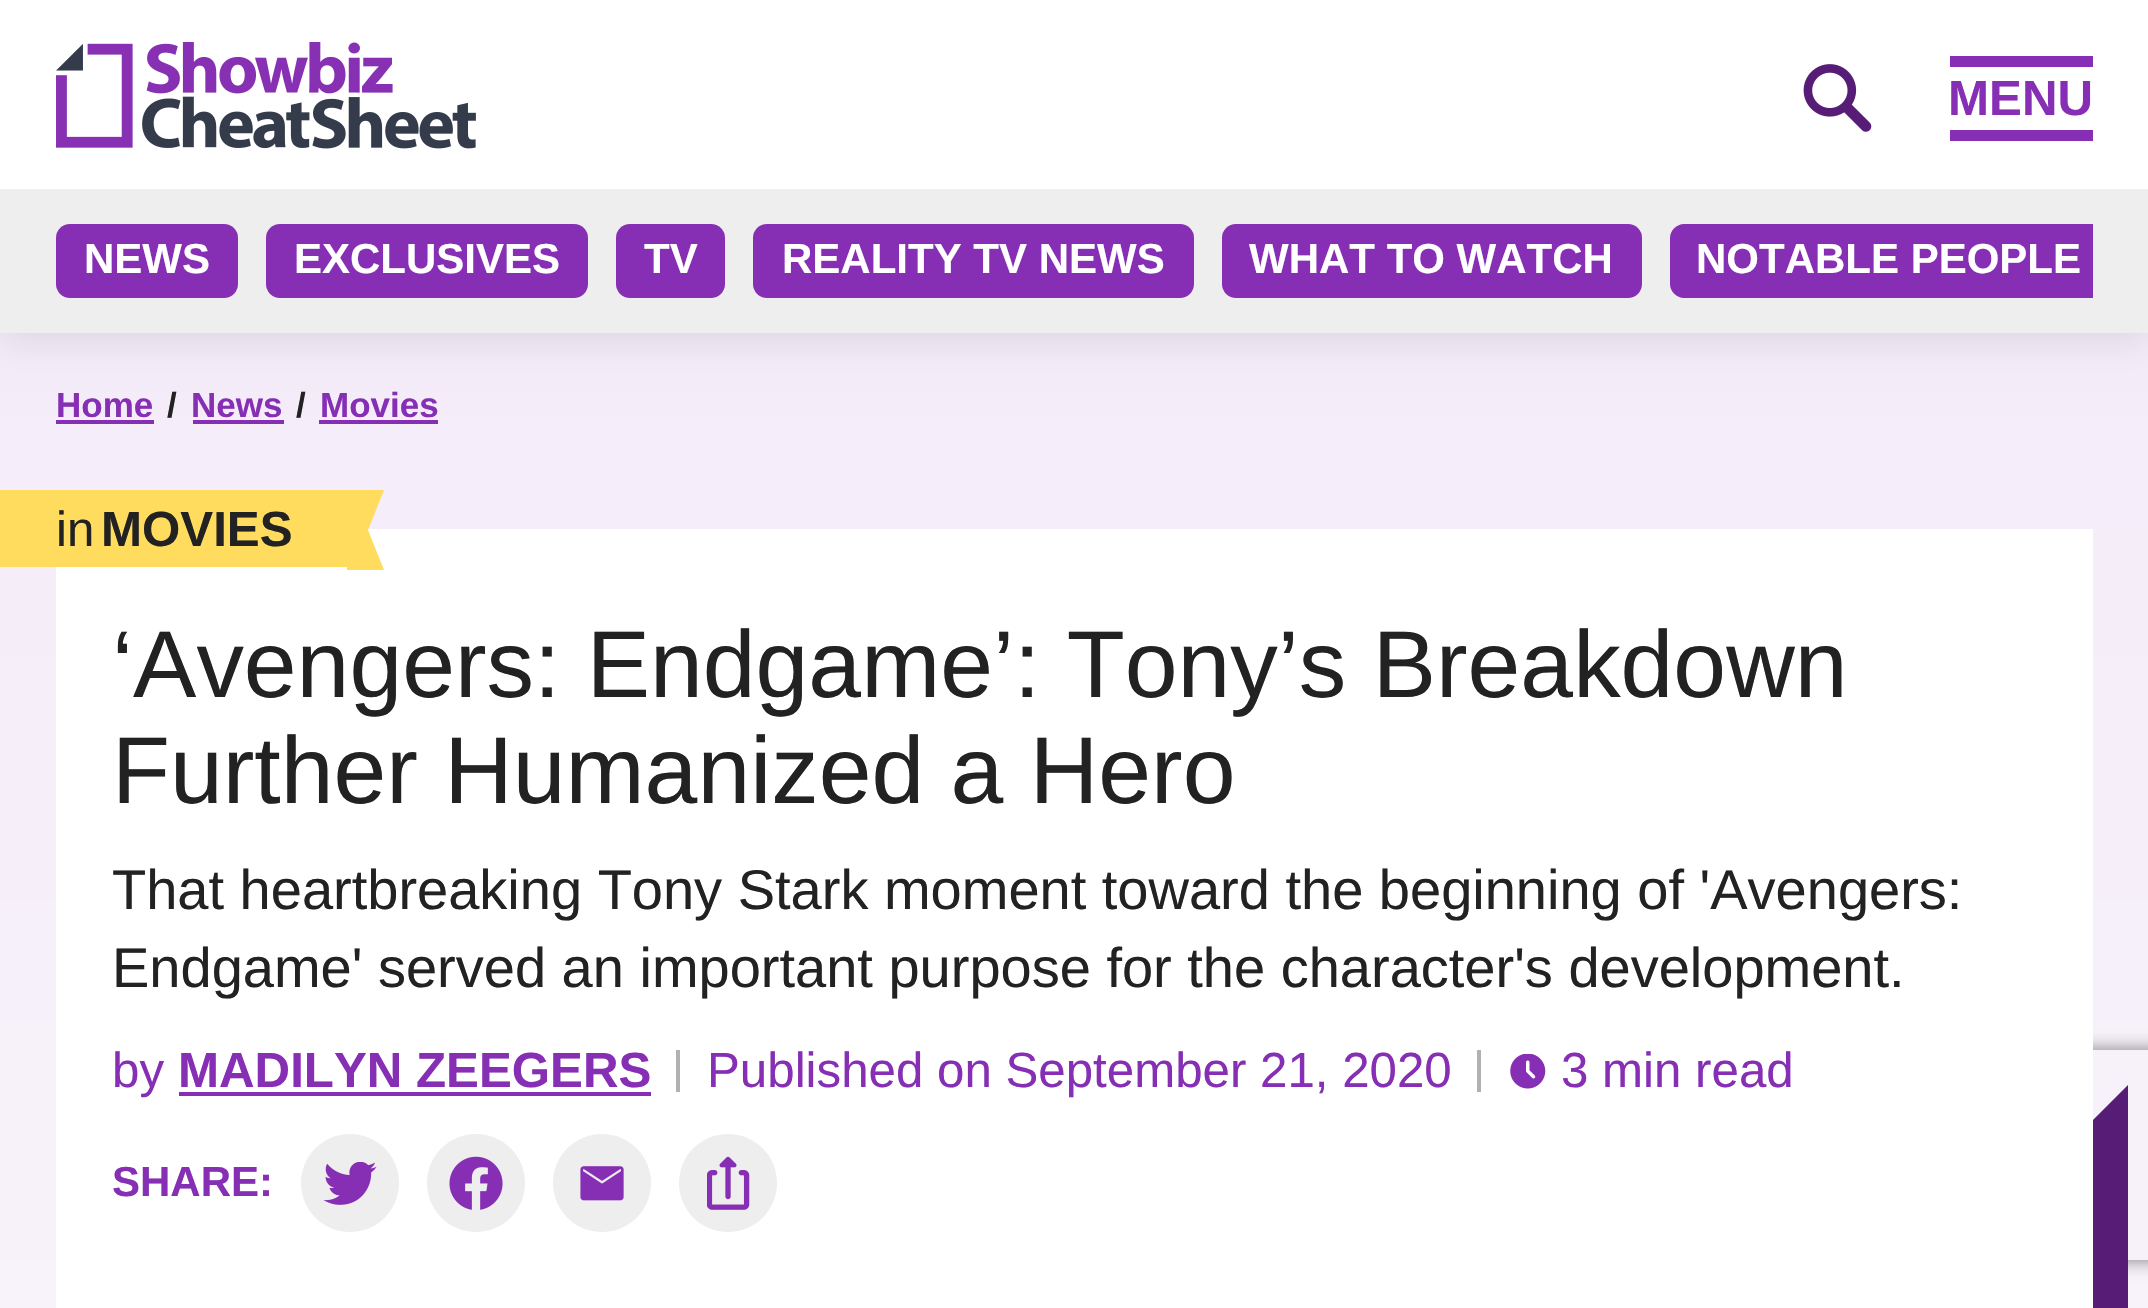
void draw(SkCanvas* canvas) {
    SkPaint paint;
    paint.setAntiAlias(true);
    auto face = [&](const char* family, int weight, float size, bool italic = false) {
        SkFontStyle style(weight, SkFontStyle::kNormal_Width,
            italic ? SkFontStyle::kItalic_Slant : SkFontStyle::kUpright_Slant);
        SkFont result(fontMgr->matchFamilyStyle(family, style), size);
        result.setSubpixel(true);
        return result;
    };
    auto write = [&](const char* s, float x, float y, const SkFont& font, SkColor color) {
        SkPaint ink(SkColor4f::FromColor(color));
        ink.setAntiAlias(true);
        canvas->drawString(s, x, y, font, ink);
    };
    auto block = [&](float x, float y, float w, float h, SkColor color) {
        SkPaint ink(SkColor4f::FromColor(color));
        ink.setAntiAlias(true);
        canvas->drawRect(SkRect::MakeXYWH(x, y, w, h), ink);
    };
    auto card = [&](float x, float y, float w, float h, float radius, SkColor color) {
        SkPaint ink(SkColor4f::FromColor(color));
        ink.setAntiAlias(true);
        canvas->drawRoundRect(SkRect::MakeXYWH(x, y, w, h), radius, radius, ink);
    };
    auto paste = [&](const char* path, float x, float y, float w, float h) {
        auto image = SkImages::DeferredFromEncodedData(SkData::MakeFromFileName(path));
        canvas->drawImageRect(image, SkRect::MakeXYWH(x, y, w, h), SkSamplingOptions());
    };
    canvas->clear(SK_ColorWHITE);
    paint.setColor(SkColorSetARGB(26, 0, 0, 0));
    paint.setMaskFilter(SkMaskFilter::MakeBlur(kNormal_SkBlurStyle, 17.5f));
    canvas->drawRect(SkRect::MakeXYWH(0, 7, 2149, 333), paint);
    paint.setMaskFilter(nullptr);
    block(0, 0, 2148, 189, SK_ColorWHITE);
    paste("pic1.png", 56, 42, 420, 107);
    paste("pic2.png", 1803, 64, 69, 68);
    block(1950, 56, 143, 11, SkColorSetRGB(134, 46, 180));
    block(1950, 130, 143, 11, SkColorSetRGB(134, 46, 180));
    auto kFont1 = face("Liberation Sans", 700, 49.25f);
    write("MENU", 1948, 115, kFont1, SkColorSetRGB(134, 46, 180));
    block(0, 189, 2148, 144, SkColorSetRGB(238, 238, 238));
    card(56, 224, 182, 74, 14, SkColorSetRGB(134, 46, 180));
    auto kFont2 = face("Liberation Sans", 700, 42);
    write("NEWS", 84, 273, kFont2, SK_ColorWHITE);
    card(266, 224, 322, 74, 14, SkColorSetRGB(134, 46, 180));
    write("EXCLUSIVES", 294, 273, kFont2, SK_ColorWHITE);
    card(616, 224, 109, 74, 14, SkColorSetRGB(134, 46, 180));
    write("TV", 644, 273, kFont2, SK_ColorWHITE);
    card(753, 224, 441, 74, 14, SkColorSetRGB(134, 46, 180));
    write("REALITY TV NEWS", 782, 273, kFont2, SK_ColorWHITE);
    card(1222, 224, 420, 74, 14, SkColorSetRGB(134, 46, 180));
    write("WHAT TO WATCH", 1249, 273, kFont2, SK_ColorWHITE);
    paint.setColor(SkColorSetRGB(134, 46, 180));
    canvas->drawPath(SkPathBuilder().moveTo(1684, 224).lineTo(2093, 224).lineTo(2093, 298).lineTo(1684, 298).cubicTo(1676.5f, 298, 1670, 291.5f, 1670, 284).lineTo(1670, 238).cubicTo(1670, 230.5f, 1676.5f, 224, 1684, 224).close().detach(), paint);
    write("NOTABLE PEOPLE", 1696, 273, kFont2, SK_ColorWHITE);
    block(56, 420, 98, 4, SkColorSetRGB(134, 46, 180));
    block(193, 420, 91, 4, SkColorSetRGB(134, 46, 180));
    block(319, 420, 119, 4, SkColorSetRGB(134, 46, 180));
    canvas->save();
    canvas->clipPath(SkPathBuilder(SkPathFillType::kEvenOdd).moveTo(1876, 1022).lineTo(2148, 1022).lineTo(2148, 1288).lineTo(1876, 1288).close().moveTo(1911, 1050).lineTo(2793, 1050).cubicTo(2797, 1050, 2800, 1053, 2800, 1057).lineTo(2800, 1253).cubicTo(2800, 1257, 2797, 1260, 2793, 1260).lineTo(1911, 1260).cubicTo(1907, 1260, 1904, 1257, 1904, 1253).lineTo(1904, 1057).cubicTo(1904, 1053, 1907, 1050, 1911, 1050).close().detach(), true);
    paint.setColor(SkColorSetRGB(128, 128, 128));
    paint.setMaskFilter(SkMaskFilter::MakeBlur(kNormal_SkBlurStyle, 9));
    canvas->drawRoundRect(SkRect::MakeXYWH(1904, 1050, 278, 210), 7, 7, paint);
    paint.setMaskFilter(nullptr);
    canvas->restore();
    {
        const SkColor colors[] = {SkColorSetARGB(51, 134, 46, 180), SkColorSetARGB(0, 134, 46, 180)};
        const float stops[] = {0, 1};
        const SkPoint ends[] = {{1074, -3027}, {1075, 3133}};
        paint.setShader(SkGradientShader::MakeLinear(ends, colors, stops, 2, SkTileMode::kClamp));
        paint.setAlpha(255);
    }
    canvas->drawRect(SkRect::MakeXYWH(0, 333, 2148, 975), paint);
    auto kFont3 = face("Liberation Sans", 700, 35);
    write("Home", 56, 417, kFont3, SkColorSetRGB(134, 46, 180));
    write("/", 167, 417, kFont3, SkColorSetRGB(34, 34, 34));
    write("News", 191, 417, kFont3, SkColorSetRGB(134, 46, 180));
    write("/", 296, 417, kFont3, SkColorSetRGB(34, 34, 34));
    write("Movies", 320, 417, kFont3, SkColorSetRGB(134, 46, 180));
    block(56, 529, 2037, 779, SK_ColorWHITE);
    block(0, 490, 347, 77, SkColorSetRGB(255, 219, 94));
    auto kFont4 = face("Liberation Sans", 400, 49.25f);
    write("in", 56, 546, kFont4, SkColorSetRGB(34, 34, 34));
    write("MOVIES", 101, 546, kFont1, SkColorSetRGB(34, 34, 34));
    paint.setShader(nullptr);
    paint.setColor(SkColorSetRGB(255, 219, 94));
    canvas->drawPath(SkPathBuilder().moveTo(347, 490).lineTo(384, 490).lineTo(368, 530).lineTo(384, 570).lineTo(347, 570).close().detach(), paint);
    auto kFont5 = face("Liberation Sans", 400, 94.9f);
    write("‘Avengers: Endgame’: Tony’s Breakdown", 112, 697, kFont5, SkColorSetRGB(34, 34, 34));
    write("Further Humanized a Hero", 112, 803, kFont5, SkColorSetRGB(34, 34, 34));
    auto kFont6 = face("Liberation Sans", 400, 56);
    write("That heartbreaking Tony Stark moment toward the beginning of 'Avengers:", 112, 909, kFont6, SkColorSetRGB(34, 34, 34));
    write("Endgame' served an important purpose for the character's development.", 112, 987, kFont6, SkColorSetRGB(34, 34, 34));
    write("by", 112, 1087, kFont4, SkColorSetRGB(134, 46, 180));
    write("MADILYN ZEEGERS", 178, 1087, kFont1, SkColorSetRGB(134, 46, 180));
    block(179, 1092, 472, 4, SkColorSetRGB(134, 46, 180));
    block(676, 1050, 4, 42, SkColorSetRGB(177, 177, 177));
    write("Published on September 21, 2020", 707, 1087, kFont4, SkColorSetRGB(134, 46, 180));
    block(1477, 1050, 4, 42, SkColorSetRGB(177, 177, 177));
    paste("pic3.png", 1510, 1054, 36, 35);
    write("3 min read", 1561, 1087, kFont4, SkColorSetRGB(134, 46, 180));
    paint.setColor(SkColorSetRGB(86, 28, 118));
    canvas->drawPath(SkPathBuilder().moveTo(2128, 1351).lineTo(1862, 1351).lineTo(2128, 1085).close().detach(), paint);
    paint.setColor(SK_ColorWHITE);
    canvas->drawPath(SkPathBuilder().moveTo(2093, 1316).lineTo(1827, 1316).lineTo(2093, 1050).close().detach(), paint);
    write("SHARE:", 112, 1196, kFont2, SkColorSetRGB(134, 46, 180));
    paint.setColor(SkColorSetRGB(238, 238, 238));
    canvas->drawCircle(350, 1183, 49, paint);
    paste("pic4.png", 323, 1162, 54, 43);
    canvas->drawCircle(476, 1183, 49, paint);
    paste("pic5.png", 449, 1156, 54, 54);
    canvas->drawCircle(602, 1183, 49, paint);
    paste("pic6.png", 580, 1166, 44, 35);
    canvas->drawCircle(728, 1183, 49, paint);
    paste("pic7.png", 707, 1156, 43, 54);
}
